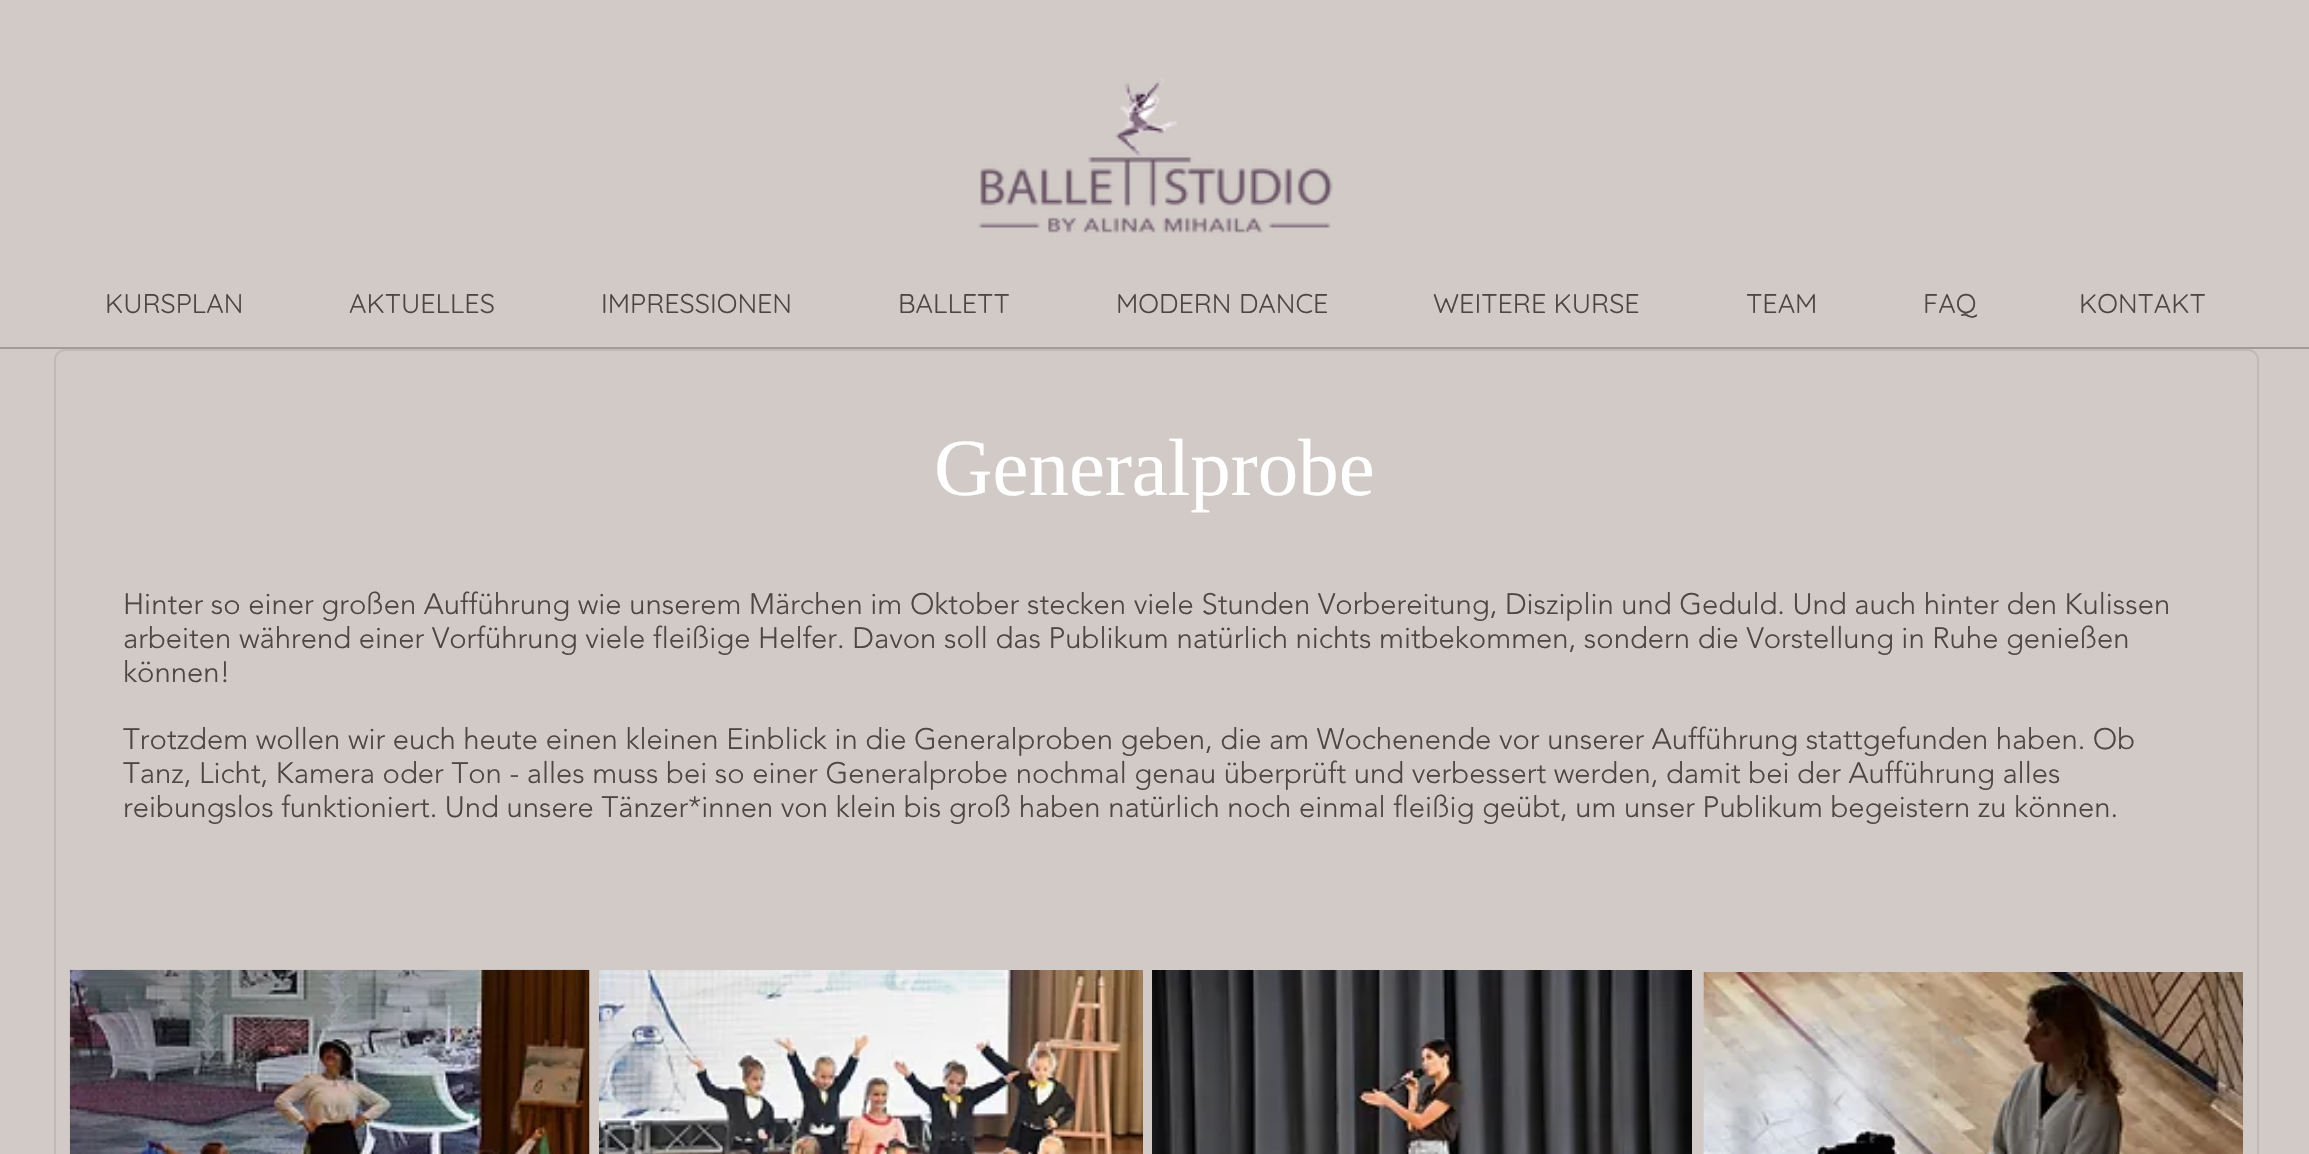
void draw(SkCanvas* canvas) {
    SkPaint paint;
    paint.setAntiAlias(true);
    auto face = [&](const char* family, int weight, float size, bool italic = false) {
        SkFontStyle style(weight, SkFontStyle::kNormal_Width,
            italic ? SkFontStyle::kItalic_Slant : SkFontStyle::kUpright_Slant);
        SkFont result(fontMgr->matchFamilyStyle(family, style), size);
        result.setSubpixel(true);
        return result;
    };
    auto write = [&](const char* s, float x, float y, const SkFont& font, SkColor color) {
        SkPaint ink(SkColor4f::FromColor(color));
        ink.setAntiAlias(true);
        canvas->drawString(s, x, y, font, ink);
    };
    auto block = [&](float x, float y, float w, float h, SkColor color) {
        SkPaint ink(SkColor4f::FromColor(color));
        ink.setAntiAlias(true);
        canvas->drawRect(SkRect::MakeXYWH(x, y, w, h), ink);
    };
    auto paste = [&](const char* path, float x, float y, float w, float h) {
        auto image = SkImages::DeferredFromEncodedData(SkData::MakeFromFileName(path));
        canvas->drawImageRect(image, SkRect::MakeXYWH(x, y, w, h), SkSamplingOptions());
    };
    canvas->clear(SkColorSetRGB(209, 202, 199));
    paste("pic1.png", 978, 77, 355, 156);
    auto kFont1 = face("Quicksand", 400, 27);
    write("KURSPLAN", 105, 313, kFont1, SkColorSetRGB(79, 70, 67));
    write("AKTUELLES", 349, 313, kFont1, SkColorSetRGB(79, 70, 67));
    write("IMPRESSIONEN", 601, 313, kFont1, SkColorSetRGB(79, 70, 67));
    write("BALLETT", 898, 313, kFont1, SkColorSetRGB(79, 70, 67));
    write("MODERN DANCE", 1116, 313, kFont1, SkColorSetRGB(79, 70, 67));
    write("WEITERE KURSE", 1433, 313, kFont1, SkColorSetRGB(79, 70, 67));
    write("TEAM", 1746, 313, kFont1, SkColorSetRGB(79, 70, 67));
    write("FAQ", 1923, 313, kFont1, SkColorSetRGB(79, 70, 67));
    write("KONTAKT", 2079, 313, kFont1, SkColorSetRGB(79, 70, 67));
    block(0, 347, 2309, 2, SkColorSetRGB(164, 155, 152));
    paint.setStyle(SkPaint::kStroke_Style);
    paint.setStrokeWidth(2);
    paint.setColor(SkColorSetRGB(192, 185, 182));
    canvas->drawRoundRect(SkRect::MakeXYWH(55, 350, 2203, 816), 10, 10, paint);
    auto kFont2 = face("Liberation Serif", 400, 81);
    write("Generalprobe", 934, 495, kFont2, SK_ColorWHITE);
    auto kFont3 = face("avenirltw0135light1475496", 300, 29.25f);
    write("Hinter so einer großen Aufführung wie unserem Märchen im Oktober stecken viele Stunden Vorbereitung, Disziplin und Geduld. Und auch hinter den Kulissen", 123, 614, kFont3, SkColorSetRGB(79, 70, 67));
    write("arbeiten während einer Vorführung viele fleißige Helfer. Davon soll das Publikum natürlich nichts mitbekommen, sondern die Vorstellung in Ruhe genießen", 123, 648, kFont3, SkColorSetRGB(79, 70, 67));
    write("können!", 123, 682, kFont3, SkColorSetRGB(79, 70, 67));
    write("Trotzdem wollen wir euch heute einen kleinen Einblick in die Generalproben geben, die am Wochenende vor unserer Aufführung stattgefunden haben. Ob", 123, 749, kFont3, SkColorSetRGB(79, 70, 67));
    write("Tanz, Licht, Kamera oder Ton - alles muss bei so einer Generalprobe nochmal genau überprüft und verbessert werden, damit bei der Aufführung alles", 123, 783, kFont3, SkColorSetRGB(79, 70, 67));
    write("reibungslos funktioniert. Und unsere Tänzer*innen von klein bis groß haben natürlich noch einmal fleißig geübt, um unser Publikum begeistern zu können.", 123, 817, kFont3, SkColorSetRGB(79, 70, 67));
    paste("pic2.png", 69, 969, 521, 185);
    paste("pic3.png", 599, 970, 544, 184);
    paste("pic4.png", 1152, 970, 540, 184);
    paste("pic5.png", 1703, 972, 540, 182);
}
